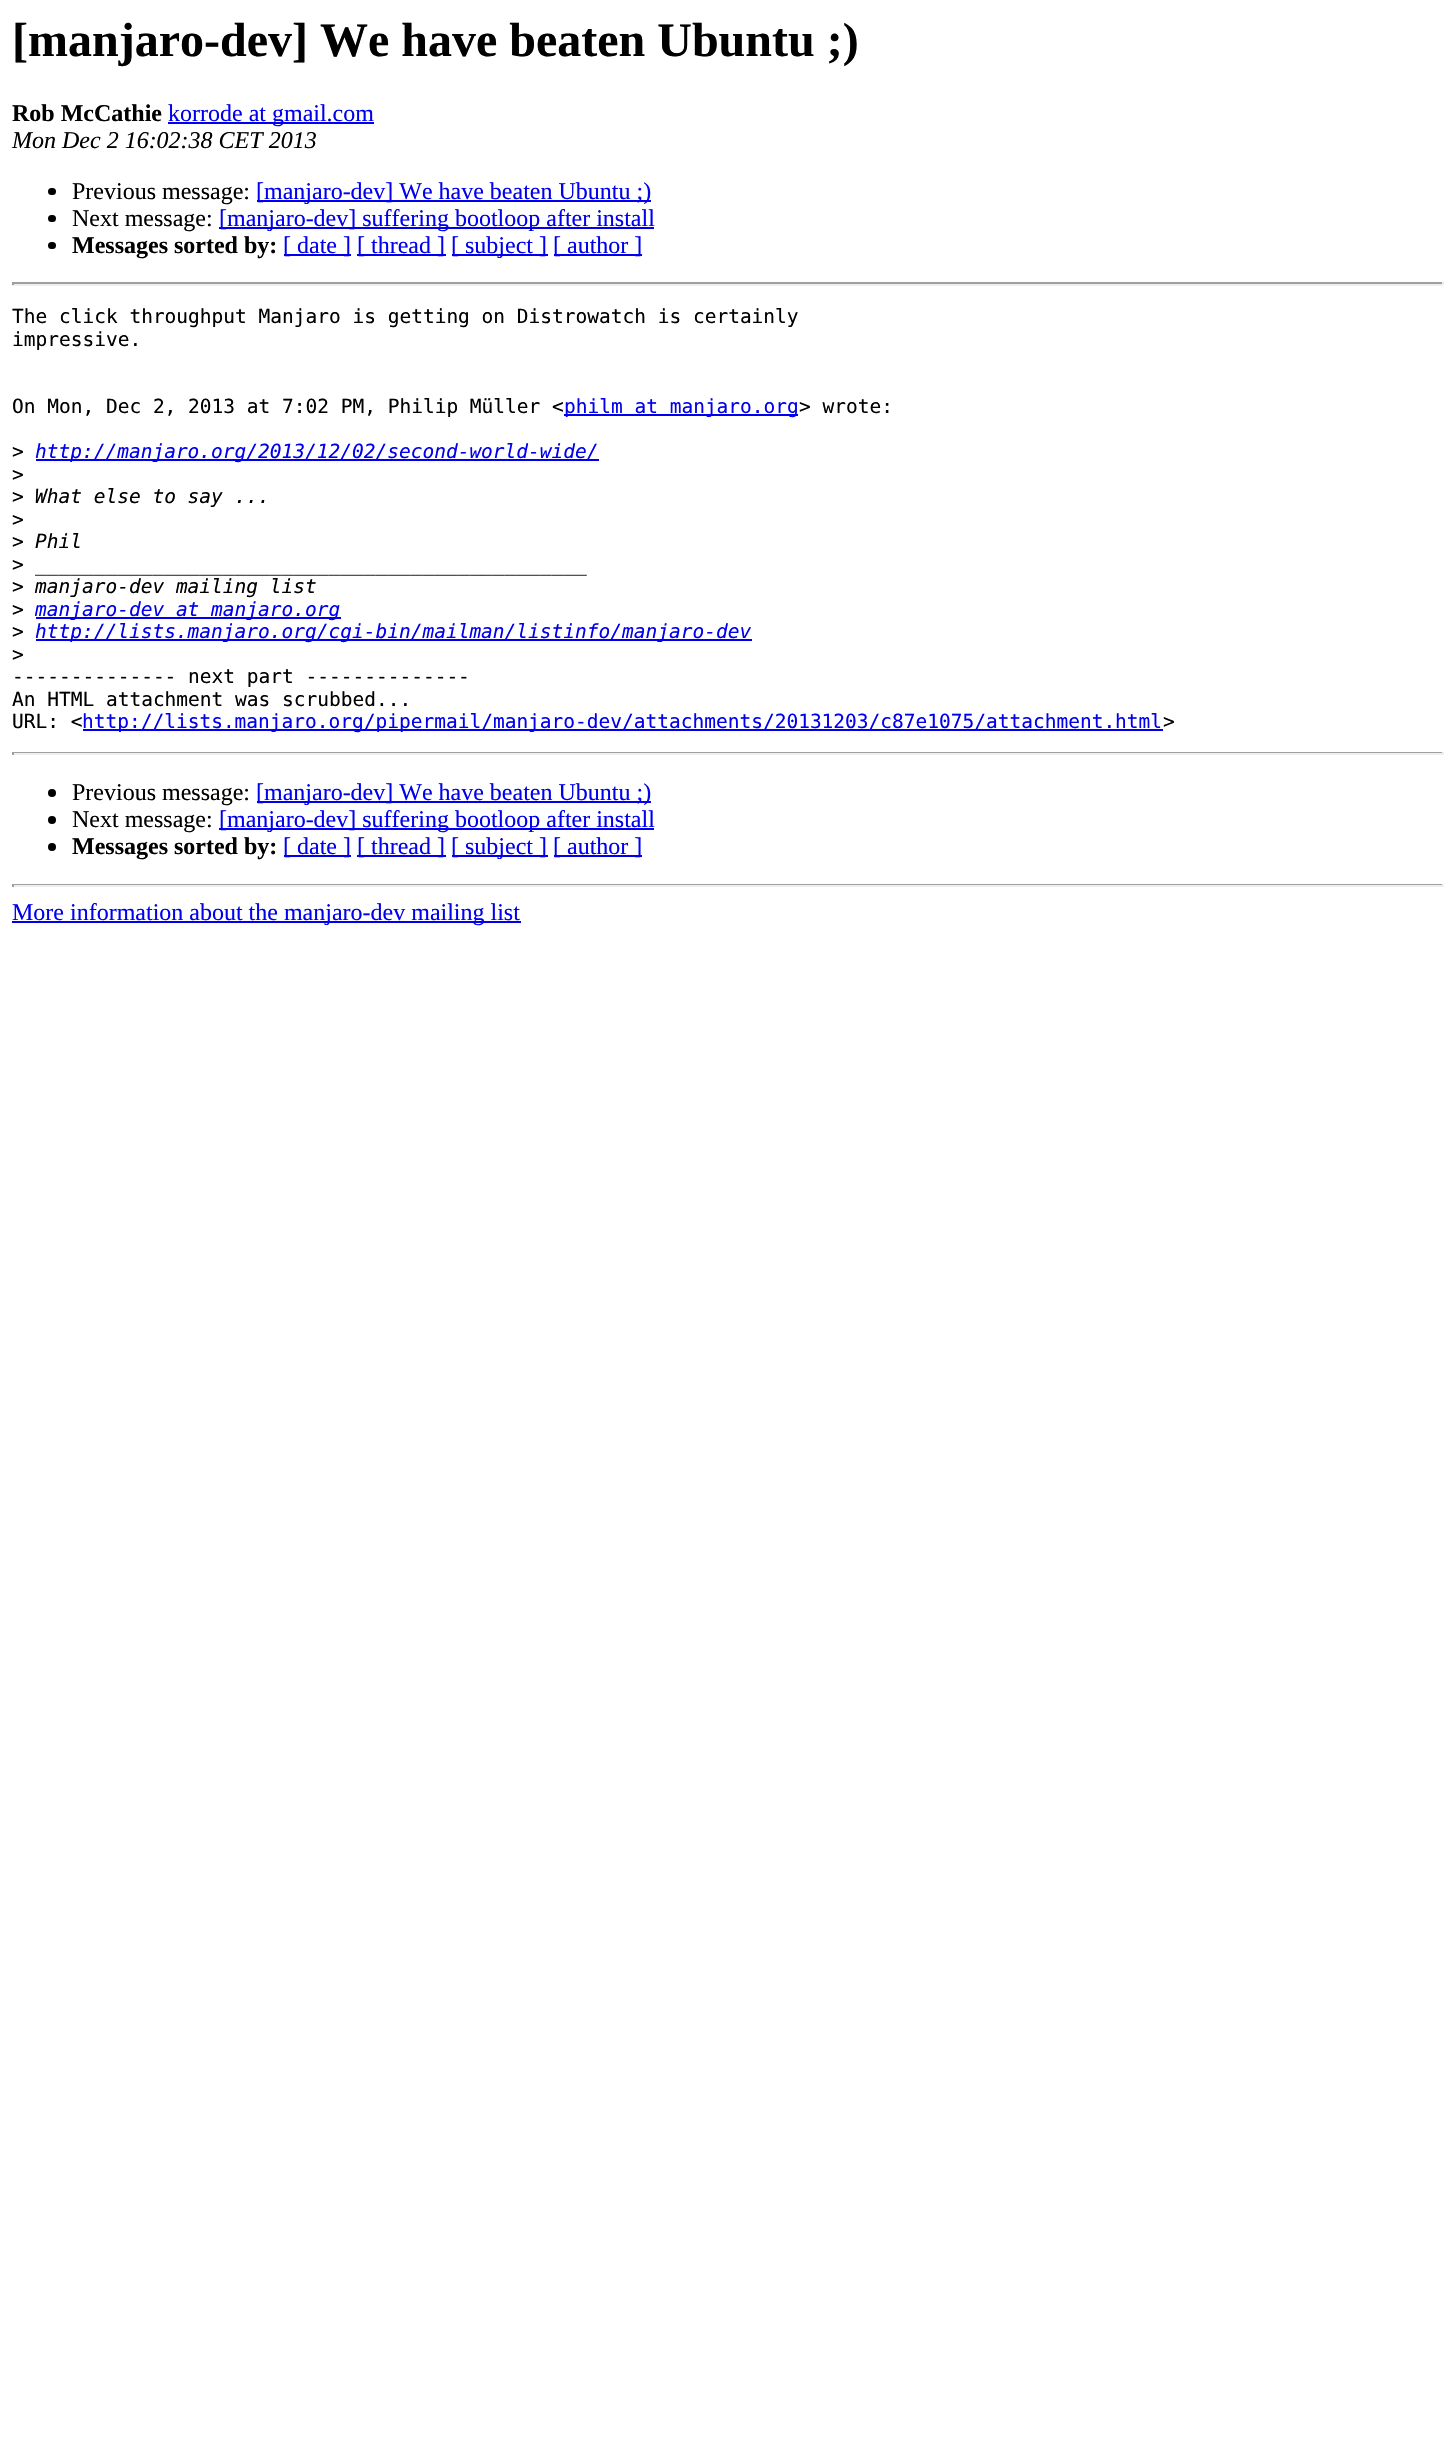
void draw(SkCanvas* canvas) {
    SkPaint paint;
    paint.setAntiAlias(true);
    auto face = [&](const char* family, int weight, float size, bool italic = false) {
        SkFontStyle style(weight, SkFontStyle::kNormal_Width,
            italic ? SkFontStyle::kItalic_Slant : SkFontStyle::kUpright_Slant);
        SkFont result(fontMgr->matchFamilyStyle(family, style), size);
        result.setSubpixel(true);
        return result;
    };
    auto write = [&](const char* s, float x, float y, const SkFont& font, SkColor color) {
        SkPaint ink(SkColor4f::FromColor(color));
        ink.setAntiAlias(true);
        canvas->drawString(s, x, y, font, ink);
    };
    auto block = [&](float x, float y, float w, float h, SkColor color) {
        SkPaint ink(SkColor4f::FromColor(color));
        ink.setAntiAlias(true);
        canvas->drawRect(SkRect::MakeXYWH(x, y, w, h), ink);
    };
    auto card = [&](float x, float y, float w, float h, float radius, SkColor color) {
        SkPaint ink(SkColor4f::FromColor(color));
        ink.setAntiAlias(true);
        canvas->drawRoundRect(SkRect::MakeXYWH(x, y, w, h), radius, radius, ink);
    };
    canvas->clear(SK_ColorWHITE);
    auto kFont1 = face("Liberation Serif", 700, 48);
    write("[manjaro-dev] We have beaten Ubuntu ;)", 12, 56, kFont1, SK_ColorBLACK);
    auto kFont2 = face("Liberation Serif", 700, 24);
    write("Rob McCathie", 12, 121, kFont2, SK_ColorBLACK);
    block(168, 122, 206, 2, SkColorSetRGB(0, 0, 238));
    auto kFont3 = face("Liberation Serif", 400, 24);
    write("korrode at gmail.com", 168, 121, kFont3, SkColorSetRGB(0, 0, 238));
    auto kFont4 = face("Liberation Serif", 400, 24, true);
    write("Mon Dec 2 16:02:38 CET 2013", 12, 148, kFont4, SK_ColorBLACK);
    card(48, 188, 8, 7, 3.5f, SK_ColorBLACK);
    write("Previous message:", 72, 199, kFont3, SK_ColorBLACK);
    block(257, 200, 394, 2, SkColorSetRGB(0, 0, 238));
    write("[manjaro-dev] We have beaten Ubuntu ;)", 256, 199, kFont3, SkColorSetRGB(0, 0, 238));
    card(48, 215, 8, 7, 3.5f, SK_ColorBLACK);
    write("Next message:", 72, 226, kFont3, SK_ColorBLACK);
    block(219, 227, 435, 2, SkColorSetRGB(0, 0, 238));
    write("[manjaro-dev] suffering bootloop after install", 219, 226, kFont3, SkColorSetRGB(0, 0, 238));
    card(48, 242, 8, 7, 3.5f, SK_ColorBLACK);
    write("Messages sorted by:", 72, 253, kFont2, SK_ColorBLACK);
    block(284, 254, 67, 2, SkColorSetRGB(0, 0, 238));
    write("[ date ]", 283, 253, kFont3, SkColorSetRGB(0, 0, 238));
    block(357, 254, 89, 2, SkColorSetRGB(0, 0, 238));
    write("[ thread ]", 357, 253, kFont3, SkColorSetRGB(0, 0, 238));
    block(452, 254, 96, 2, SkColorSetRGB(0, 0, 238));
    write("[ subject ]", 451, 253, kFont3, SkColorSetRGB(0, 0, 238));
    block(554, 254, 88, 2, SkColorSetRGB(0, 0, 238));
    write("[ author ]", 553, 253, kFont3, SkColorSetRGB(0, 0, 238));
    block(12, 282, 1431, 2, SkColorSetRGB(159, 159, 159));
    block(1442, 282, 2, 3, SkColorSetRGB(238, 238, 238));
    block(12, 284, 1431, 2, SkColorSetRGB(238, 238, 238));
    block(12, 282, 2, 3, SkColorSetRGB(159, 159, 159));
    auto kFont5 = face("DejaVu Sans Mono", 400, 19.5f);
    write("The click throughput Manjaro is getting on Distrowatch is certainly", 12, 323, kFont5, SK_ColorBLACK);
    write("impressive.", 12, 346, kFont5, SK_ColorBLACK);
    write("On Mon, Dec 2, 2013 at 7:02 PM, Philip Müller <", 12, 413, kFont5, SK_ColorBLACK);
    block(564, 414, 234, 2, SkColorSetRGB(0, 0, 238));
    write("philm at manjaro.org", 564, 413, kFont5, SkColorSetRGB(0, 0, 238));
    write("> wrote:", 799, 413, kFont5, SK_ColorBLACK);
    write(">", 12, 458, kFont5, SK_ColorBLACK);
    block(36, 459, 563, 2, SkColorSetRGB(0, 0, 238));
    auto kFont6 = face("DejaVu Sans Mono", 400, 19.5f, true);
    write("http://manjaro.org/2013/12/02/second-world-wide/", 35, 458, kFont6, SkColorSetRGB(0, 0, 238));
    write(">", 12, 481, kFont5, SK_ColorBLACK);
    write(">", 12, 503, kFont5, SK_ColorBLACK);
    write("What else to say ...", 35, 503, kFont6, SK_ColorBLACK);
    write(">", 12, 526, kFont5, SK_ColorBLACK);
    write(">", 12, 548, kFont5, SK_ColorBLACK);
    write("Phil", 35, 548, kFont6, SK_ColorBLACK);
    write(">", 12, 571, kFont5, SK_ColorBLACK);
    write("_______________________________________________", 35, 571, kFont6, SK_ColorBLACK);
    write(">", 12, 593, kFont5, SK_ColorBLACK);
    write("manjaro-dev mailing list", 35, 593, kFont6, SK_ColorBLACK);
    write(">", 12, 616, kFont5, SK_ColorBLACK);
    block(36, 617, 305, 2, SkColorSetRGB(0, 0, 238));
    write("manjaro-dev at manjaro.org", 35, 616, kFont6, SkColorSetRGB(0, 0, 238));
    write(">", 12, 638, kFont5, SK_ColorBLACK);
    block(36, 639, 716, 2, SkColorSetRGB(0, 0, 238));
    write("http://lists.manjaro.org/cgi-bin/mailman/listinfo/manjaro-dev", 35, 638, kFont6, SkColorSetRGB(0, 0, 238));
    write(">", 12, 661, kFont5, SK_ColorBLACK);
    write("-------------- next part --------------", 12, 683, kFont5, SK_ColorBLACK);
    write("An HTML attachment was scrubbed...", 12, 706, kFont5, SK_ColorBLACK);
    write("URL: <", 12, 728, kFont5, SK_ColorBLACK);
    block(83, 729, 1080, 2, SkColorSetRGB(0, 0, 238));
    write("http://lists.manjaro.org/pipermail/manjaro-dev/attachments/20131203/c87e1075/attachment.html", 82, 728, kFont5, SkColorSetRGB(0, 0, 238));
    write(">", 1163, 728, kFont5, SK_ColorBLACK);
    block(12, 752, 1431, 1, SkColorSetRGB(159, 159, 159));
    block(1442, 752, 2, 3, SkColorSetRGB(238, 238, 238));
    block(12, 753, 1431, 2, SkColorSetRGB(238, 238, 238));
    block(12, 752, 2, 3, SkColorSetRGB(159, 159, 159));
    paint.setColor(SK_ColorBLACK);
    canvas->drawCircle(52, 793, 4, paint);
    write("Previous message:", 72, 800, kFont3, SK_ColorBLACK);
    block(257, 801, 394, 2, SkColorSetRGB(0, 0, 238));
    write("[manjaro-dev] We have beaten Ubuntu ;)", 256, 800, kFont3, SkColorSetRGB(0, 0, 238));
    canvas->drawCircle(52, 820, 4, paint);
    write("Next message:", 72, 827, kFont3, SK_ColorBLACK);
    block(219, 828, 435, 2, SkColorSetRGB(0, 0, 238));
    write("[manjaro-dev] suffering bootloop after install", 219, 827, kFont3, SkColorSetRGB(0, 0, 238));
    canvas->drawCircle(52, 847, 4, paint);
    write("Messages sorted by:", 72, 854, kFont2, SK_ColorBLACK);
    block(284, 855, 67, 2, SkColorSetRGB(0, 0, 238));
    write("[ date ]", 283, 854, kFont3, SkColorSetRGB(0, 0, 238));
    block(357, 855, 89, 2, SkColorSetRGB(0, 0, 238));
    write("[ thread ]", 357, 854, kFont3, SkColorSetRGB(0, 0, 238));
    block(452, 855, 96, 2, SkColorSetRGB(0, 0, 238));
    write("[ subject ]", 451, 854, kFont3, SkColorSetRGB(0, 0, 238));
    block(554, 855, 88, 2, SkColorSetRGB(0, 0, 238));
    write("[ author ]", 553, 854, kFont3, SkColorSetRGB(0, 0, 238));
    block(12, 884, 1431, 1, SkColorSetRGB(159, 159, 159));
    block(1442, 884, 2, 3, SkColorSetRGB(238, 238, 238));
    block(12, 885, 1431, 2, SkColorSetRGB(238, 238, 238));
    block(12, 884, 2, 3, SkColorSetRGB(159, 159, 159));
    block(12, 921, 509, 2, SkColorSetRGB(0, 0, 238));
    write("More information about the manjaro-dev mailing list", 12, 920, kFont3, SkColorSetRGB(0, 0, 238));
}
